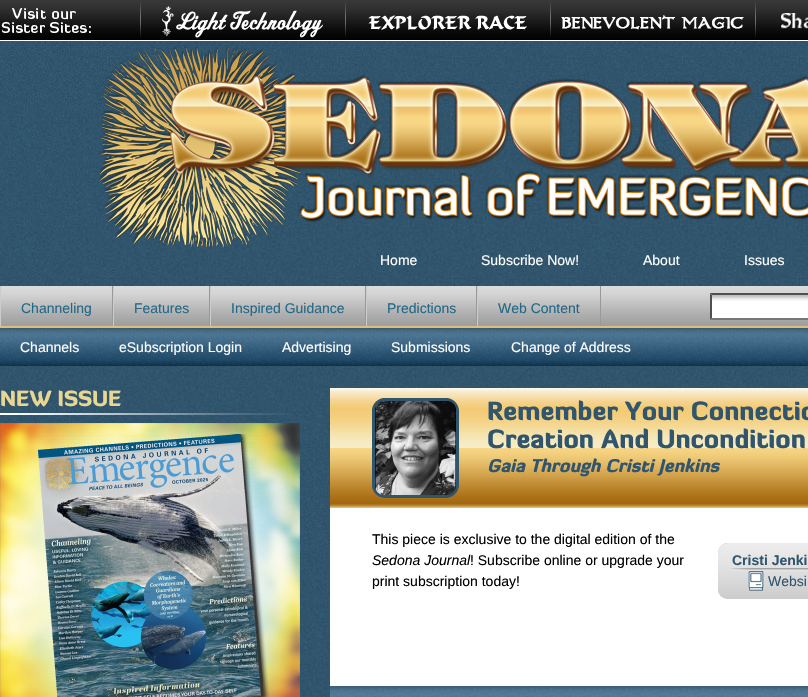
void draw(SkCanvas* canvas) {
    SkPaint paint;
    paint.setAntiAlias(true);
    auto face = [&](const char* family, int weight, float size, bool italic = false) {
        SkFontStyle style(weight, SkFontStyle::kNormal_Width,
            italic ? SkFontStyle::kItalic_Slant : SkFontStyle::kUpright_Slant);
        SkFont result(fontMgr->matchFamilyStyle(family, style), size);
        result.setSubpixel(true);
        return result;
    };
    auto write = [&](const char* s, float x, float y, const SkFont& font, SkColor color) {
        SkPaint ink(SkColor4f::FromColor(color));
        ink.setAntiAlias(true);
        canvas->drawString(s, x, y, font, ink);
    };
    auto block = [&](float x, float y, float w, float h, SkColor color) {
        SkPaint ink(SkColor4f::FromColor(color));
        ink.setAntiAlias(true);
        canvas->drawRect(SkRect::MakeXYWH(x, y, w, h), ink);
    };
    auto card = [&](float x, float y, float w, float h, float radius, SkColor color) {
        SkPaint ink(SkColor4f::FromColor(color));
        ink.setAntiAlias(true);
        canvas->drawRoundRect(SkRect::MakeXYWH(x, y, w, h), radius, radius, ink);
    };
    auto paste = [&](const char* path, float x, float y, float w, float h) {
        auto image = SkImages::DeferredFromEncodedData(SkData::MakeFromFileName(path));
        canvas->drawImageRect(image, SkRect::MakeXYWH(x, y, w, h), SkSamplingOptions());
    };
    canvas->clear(SK_ColorWHITE);
    paste("pic1.png", 0, 41, 808, 656);
    paste("pic2.png", 0, 0, 808, 40);
    paste("pic3.png", 1, 8, 90, 25);
    paste("pic4.png", 140, 1, 1, 37);
    paste("pic5.png", 162, 6, 161, 32);
    paste("pic4.png", 345, 1, 1, 37);
    paste("pic6.png", 368, 15, 159, 15);
    paste("pic4.png", 550, 1, 1, 37);
    paste("pic7.png", 561, 15, 183, 15);
    paste("pic4.png", 755, 1, 1, 37);
    paste("pic8.png", 781, 13, 27, 16);
    paste("pic9.png", 100, 46, 708, 202);
    auto kFont1 = face("Liberation Sans", 400, 14);
    write("Home", 380, 265, kFont1, SK_ColorWHITE);
    write("Subscribe Now!", 481, 265, kFont1, SK_ColorWHITE);
    write("About", 643, 265, kFont1, SK_ColorWHITE);
    write("Issues", 744, 265, kFont1, SK_ColorWHITE);
    paste("pic10.png", 1, 286, 807, 40);
    block(0, 326, 808, 2, SkColorSetRGB(217, 192, 119));
    block(112, 286, 1, 40, SkColorSetRGB(153, 153, 153));
    block(0, 286, 1, 40, SkColorSetRGB(204, 204, 204));
    write("Channeling", 21, 313, kFont1, SkColorSetRGB(34, 104, 136));
    block(209, 286, 1, 40, SkColorSetRGB(153, 153, 153));
    block(113, 286, 1, 40, SkColorSetRGB(204, 204, 204));
    write("Features", 134, 313, kFont1, SkColorSetRGB(34, 104, 136));
    block(365, 286, 1, 40, SkColorSetRGB(153, 153, 153));
    block(210, 286, 1, 40, SkColorSetRGB(204, 204, 204));
    write("Inspired Guidance", 231, 313, kFont1, SkColorSetRGB(34, 104, 136));
    block(476, 286, 1, 40, SkColorSetRGB(153, 153, 153));
    block(366, 286, 1, 40, SkColorSetRGB(204, 204, 204));
    write("Predictions", 387, 313, kFont1, SkColorSetRGB(34, 104, 136));
    block(600, 286, 1, 40, SkColorSetRGB(153, 153, 153));
    block(477, 286, 1, 40, SkColorSetRGB(204, 204, 204));
    write("Web Content", 498, 313, kFont1, SkColorSetRGB(34, 104, 136));
    block(710, 293, 98, 27, SK_ColorWHITE);
    paste("pic11.png", 712, 295, 96, 6);
    paint.setColor(SkColorSetRGB(79, 79, 79));
    canvas->drawPath(SkPathBuilder().moveTo(710, 293).lineTo(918, 293).lineTo(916, 295).lineTo(712, 295).close().detach(), paint);
    paint.setColor(SkColorSetRGB(118, 118, 118));
    canvas->drawPath(SkPathBuilder().moveTo(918, 320).lineTo(710, 320).lineTo(712, 318).lineTo(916, 318).close().detach(), paint);
    paint.setColor(SkColorSetRGB(79, 79, 79));
    canvas->drawPath(SkPathBuilder().moveTo(710, 320).lineTo(710, 293).lineTo(712, 295).lineTo(712, 318).close().detach(), paint);
    paste("pic12.png", 0, 328, 808, 38);
    write("Channels", 20, 352, kFont1, SK_ColorWHITE);
    write("eSubscription Login", 119, 352, kFont1, SK_ColorWHITE);
    write("Advertising", 282, 352, kFont1, SK_ColorWHITE);
    write("Submissions", 391, 352, kFont1, SK_ColorWHITE);
    write("Change of Address", 511, 352, kFont1, SK_ColorWHITE);
    paste("pic13.png", 0, 413, 298, 2);
    auto kFont2 = face("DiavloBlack", 900, 21);
    write("NEW ISSUE", 0, 406, kFont2, SkColorSetRGB(231, 215, 146));
    paste("pic14.png", 0, 423, 300, 274);
    block(330, 508, 478, 178, SK_ColorWHITE);
    paste("pic15.png", 330, 686, 478, 11);
    paste("pic16.png", 330, 388, 478, 120);
    paste("pic17.png", 372, 398, 87, 100);
    auto kFont3 = face("DiavloBlack", 900, 25.25f);
    write("Remember Your Connectio", 487, 420, kFont3, SkColorSetRGB(48, 85, 109));
    write("Creation And Uncondition", 487, 448, kFont3, SkColorSetRGB(48, 85, 109));
    auto kFont4 = face("DiavloBlack", 900, 17.6f, true);
    write("Gaia Through Cristi Jenkins", 487, 472, kFont4, SkColorSetRGB(48, 85, 109));
    card(718, 543, 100, 56, 10, SkColorSetRGB(176, 176, 176));
    paste("pic18.png", 718, 543, 90, 56);
    paste("pic19.png", 732, 568, 76, 3);
    auto kFont5 = face("Liberation Sans", 700, 14);
    write("Cristi Jenki", 732, 565, kFont5, SkColorSetRGB(48, 85, 109));
    paste("pic20.png", 748, 571, 16, 20);
    write("Websi", 768, 586, kFont1, SkColorSetRGB(48, 85, 109));
    write("This piece is exclusive to the digital edition of the", 372, 544, kFont1, SK_ColorBLACK);
    auto kFont6 = face("Liberation Sans", 400, 14, true);
    write("Sedona Journal", 372, 565, kFont6, SK_ColorBLACK);
    write("! Subscribe online or upgrade your", 470, 565, kFont1, SK_ColorBLACK);
    write("print subscription today!", 372, 586, kFont1, SK_ColorBLACK);
}
